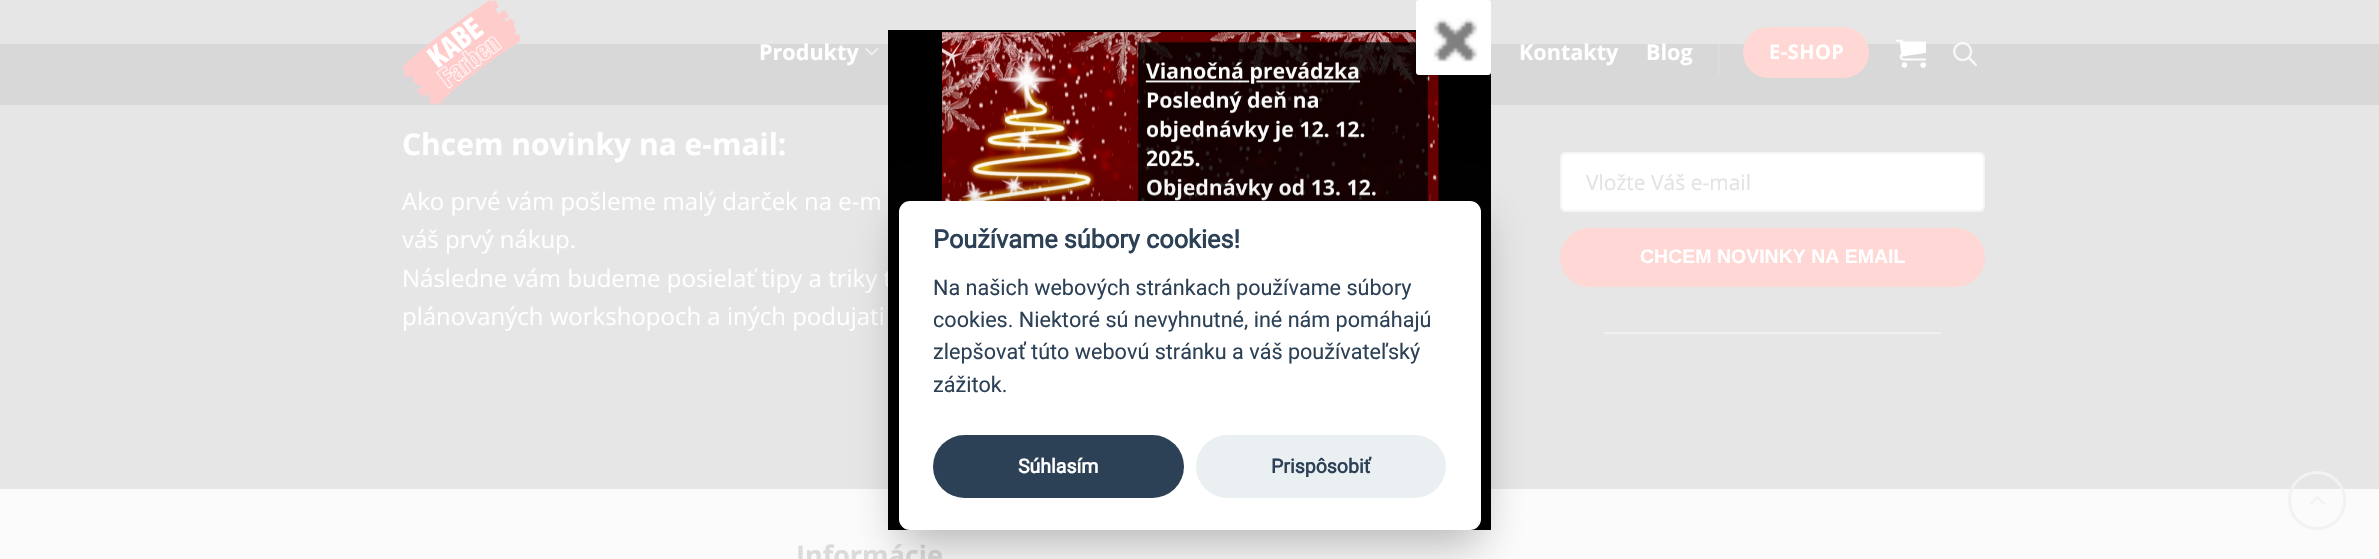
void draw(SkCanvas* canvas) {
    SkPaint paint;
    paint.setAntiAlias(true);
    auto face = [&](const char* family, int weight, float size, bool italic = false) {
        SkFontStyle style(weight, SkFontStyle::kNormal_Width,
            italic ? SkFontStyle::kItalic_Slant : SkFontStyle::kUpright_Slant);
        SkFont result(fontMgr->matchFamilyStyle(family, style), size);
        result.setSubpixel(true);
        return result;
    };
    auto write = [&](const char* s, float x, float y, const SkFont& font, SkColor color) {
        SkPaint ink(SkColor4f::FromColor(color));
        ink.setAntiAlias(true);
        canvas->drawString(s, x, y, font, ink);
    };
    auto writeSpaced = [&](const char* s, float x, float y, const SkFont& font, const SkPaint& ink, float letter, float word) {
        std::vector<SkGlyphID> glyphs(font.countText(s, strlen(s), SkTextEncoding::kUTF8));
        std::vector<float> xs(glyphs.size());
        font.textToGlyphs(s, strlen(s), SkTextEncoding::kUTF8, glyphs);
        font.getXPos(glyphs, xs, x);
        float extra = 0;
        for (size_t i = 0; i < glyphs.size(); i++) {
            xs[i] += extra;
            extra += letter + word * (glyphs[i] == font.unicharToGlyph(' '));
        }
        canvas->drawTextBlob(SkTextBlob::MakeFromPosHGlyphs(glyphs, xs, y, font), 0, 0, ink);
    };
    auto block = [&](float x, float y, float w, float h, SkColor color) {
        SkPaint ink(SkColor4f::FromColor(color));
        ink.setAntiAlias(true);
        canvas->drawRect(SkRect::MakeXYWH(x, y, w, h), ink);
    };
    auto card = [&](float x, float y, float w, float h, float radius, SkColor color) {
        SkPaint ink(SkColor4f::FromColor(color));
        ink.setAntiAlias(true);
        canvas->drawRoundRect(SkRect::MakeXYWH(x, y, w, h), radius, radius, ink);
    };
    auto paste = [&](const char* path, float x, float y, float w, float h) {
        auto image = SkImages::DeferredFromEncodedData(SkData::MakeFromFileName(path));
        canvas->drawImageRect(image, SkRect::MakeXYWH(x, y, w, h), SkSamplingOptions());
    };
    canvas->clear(SkColorSetRGB(230, 230, 230));
    block(0, 44, 2379, 61, SkColorSetRGB(216, 216, 216));
    auto kFont1 = face("Open Sans", 400, 24);
    write("Následne vám budeme posielať tipy a triky t", 402, 287, kFont1, SK_ColorWHITE);
    block(0, 489, 2379, 70, SkColorSetRGB(251, 251, 251));
    block(890, 32, 599, 496, SK_ColorBLACK);
    paste("pic2.png", 941, 32, 498, 169);
    paint.setStyle(SkPaint::kStroke_Style);
    paint.setStrokeWidth(2);
    paint.setColor(SK_ColorBLACK);
    canvas->drawRect(SkRect::MakeXYWH(889, 31, 601, 498), paint);
    paste("pic1.png", 1416, 0, 75, 75);
    paste("pic3.png", 402, 0, 119, 105);
    auto kFont2 = face("Open Sans", 700, 21.6f);
    write("Produkty", 759, 60, kFont2, SK_ColorWHITE);
    paste("pic4.png", 865, 47, 14, 9);
    write("Kontakty", 1519, 60, kFont2, SK_ColorWHITE);
    write("Blog", 1646, 60, kFont2, SK_ColorWHITE);
    card(1743, 27, 126, 51, 25.5f, SkColorSetRGB(255, 216, 213));
    auto kFont3 = face("Open Sans", 700, 20);
    paint.setStyle(SkPaint::kFill_Style);
    paint.setColor(SK_ColorWHITE);
    writeSpaced("E-SHOP", 1769, 59, kFont3, paint, 0.5f, 0);
    paste("pic5.png", 1896, 39, 30, 29);
    paste("pic6.png", 1953, 42, 24, 24);
    block(1718, 44, 2, 31, SkColorSetRGB(220, 220, 220));
    auto kFont4 = face("Open Sans", 700, 30);
    write("Chcem novinky na e-mail:", 402, 155, kFont4, SK_ColorWHITE);
    write("Ako prvé vám pošleme malý darček na e-m", 402, 210, kFont1, SK_ColorWHITE);
    write("váš prvý nákup.", 402, 248, kFont1, SK_ColorWHITE);
    write("plánovaných workshopoch a iných podujati", 402, 325, kFont1, SK_ColorWHITE);
    card(1560, 152, 425, 60, 6, SK_ColorWHITE);
    paint.setColor(SkColorSetRGB(251, 251, 251));
    canvas->drawPath(SkPathBuilder().moveTo(1566, 154).lineTo(1978, 154).cubicTo(1981, 154, 1983, 157, 1983, 159).cubicTo(1983, 156, 1981, 153, 1978, 153).lineTo(1567, 153).cubicTo(1564, 153, 1562, 156, 1562, 159).cubicTo(1562, 157, 1564, 154, 1566, 154).close().detach(), paint);
    paint.setStyle(SkPaint::kStroke_Style);
    paint.setColor(SkColorSetRGB(245, 245, 245));
    canvas->drawRoundRect(SkRect::MakeXYWH(1561, 153, 423, 58), 5, 5, paint);
    auto kFont5 = face("Open Sans", 400, 21);
    write("Vložte Váš e-mail", 1586, 190, kFont5, SkColorSetRGB(227, 227, 227));
    card(1560, 228, 425, 59, 29.5f, SkColorSetRGB(255, 216, 213));
    auto kFont6 = face("Liberation Sans", 700, 19.5f);
    write("CHCEM NOVINKY NA EMAIL", 1640, 263, kFont6, SK_ColorWHITE);
    block(1604, 332, 337, 2, SkColorSetRGB(240, 240, 240));
    paint.setStrokeWidth(3);
    paint.setColor(SkColorSetRGB(242, 242, 242));
    canvas->drawRoundRect(SkRect::MakeXYWH(2289.5f, 472.5f, 55, 56), 27.5f, 27.5f, paint);
    paste("pic7.png", 2309, 496, 17, 9);
    auto kFont7 = face("Open Sans", 700, 27);
    write("Informácie", 796, 565, kFont7, SkColorSetRGB(219, 219, 219));
    paint.setStyle(SkPaint::kFill_Style);
    paint.setColor(SkColorSetARGB(71, 2, 2, 3));
    paint.setMaskFilter(SkMaskFilter::MakeBlur(kNormal_SkBlurStyle, 22.5f));
    canvas->drawRoundRect(SkRect::MakeXYWH(899, 216, 582, 329), 11, 11, paint);
    paint.setMaskFilter(nullptr);
    card(899, 201, 582, 329, 11, SK_ColorWHITE);
    auto kFont8 = face("Roboto", 700, 25.25f);
    write("Používame súbory cookies!", 933, 248, kFont8, SkColorSetRGB(45, 65, 86));
    auto kFont9 = face("Roboto", 400, 21.6f);
    write("Na našich webových stránkach používame súbory", 933, 295, kFont9, SkColorSetRGB(45, 65, 86));
    write("cookies. Niektoré sú nevyhnutné, iné nám pomáhajú", 933, 327, kFont9, SkColorSetRGB(45, 65, 86));
    write("zlepšovať túto webovú stránku a váš používateľský", 933, 359, kFont9, SkColorSetRGB(45, 65, 86));
    write("zážitok.", 933, 392, kFont9, SkColorSetRGB(45, 65, 86));
    card(933, 435, 251, 63, 31.5f, SkColorSetRGB(45, 65, 86));
    auto kFont10 = face("Roboto", 700, 19.5f);
    write("Súhlasím", 1018, 473, kFont10, SK_ColorWHITE);
    card(1196, 435, 250, 63, 31.5f, SkColorSetRGB(234, 239, 242));
    write("Prispôsobiť", 1271, 473, kFont10, SkColorSetRGB(45, 65, 86));
}
